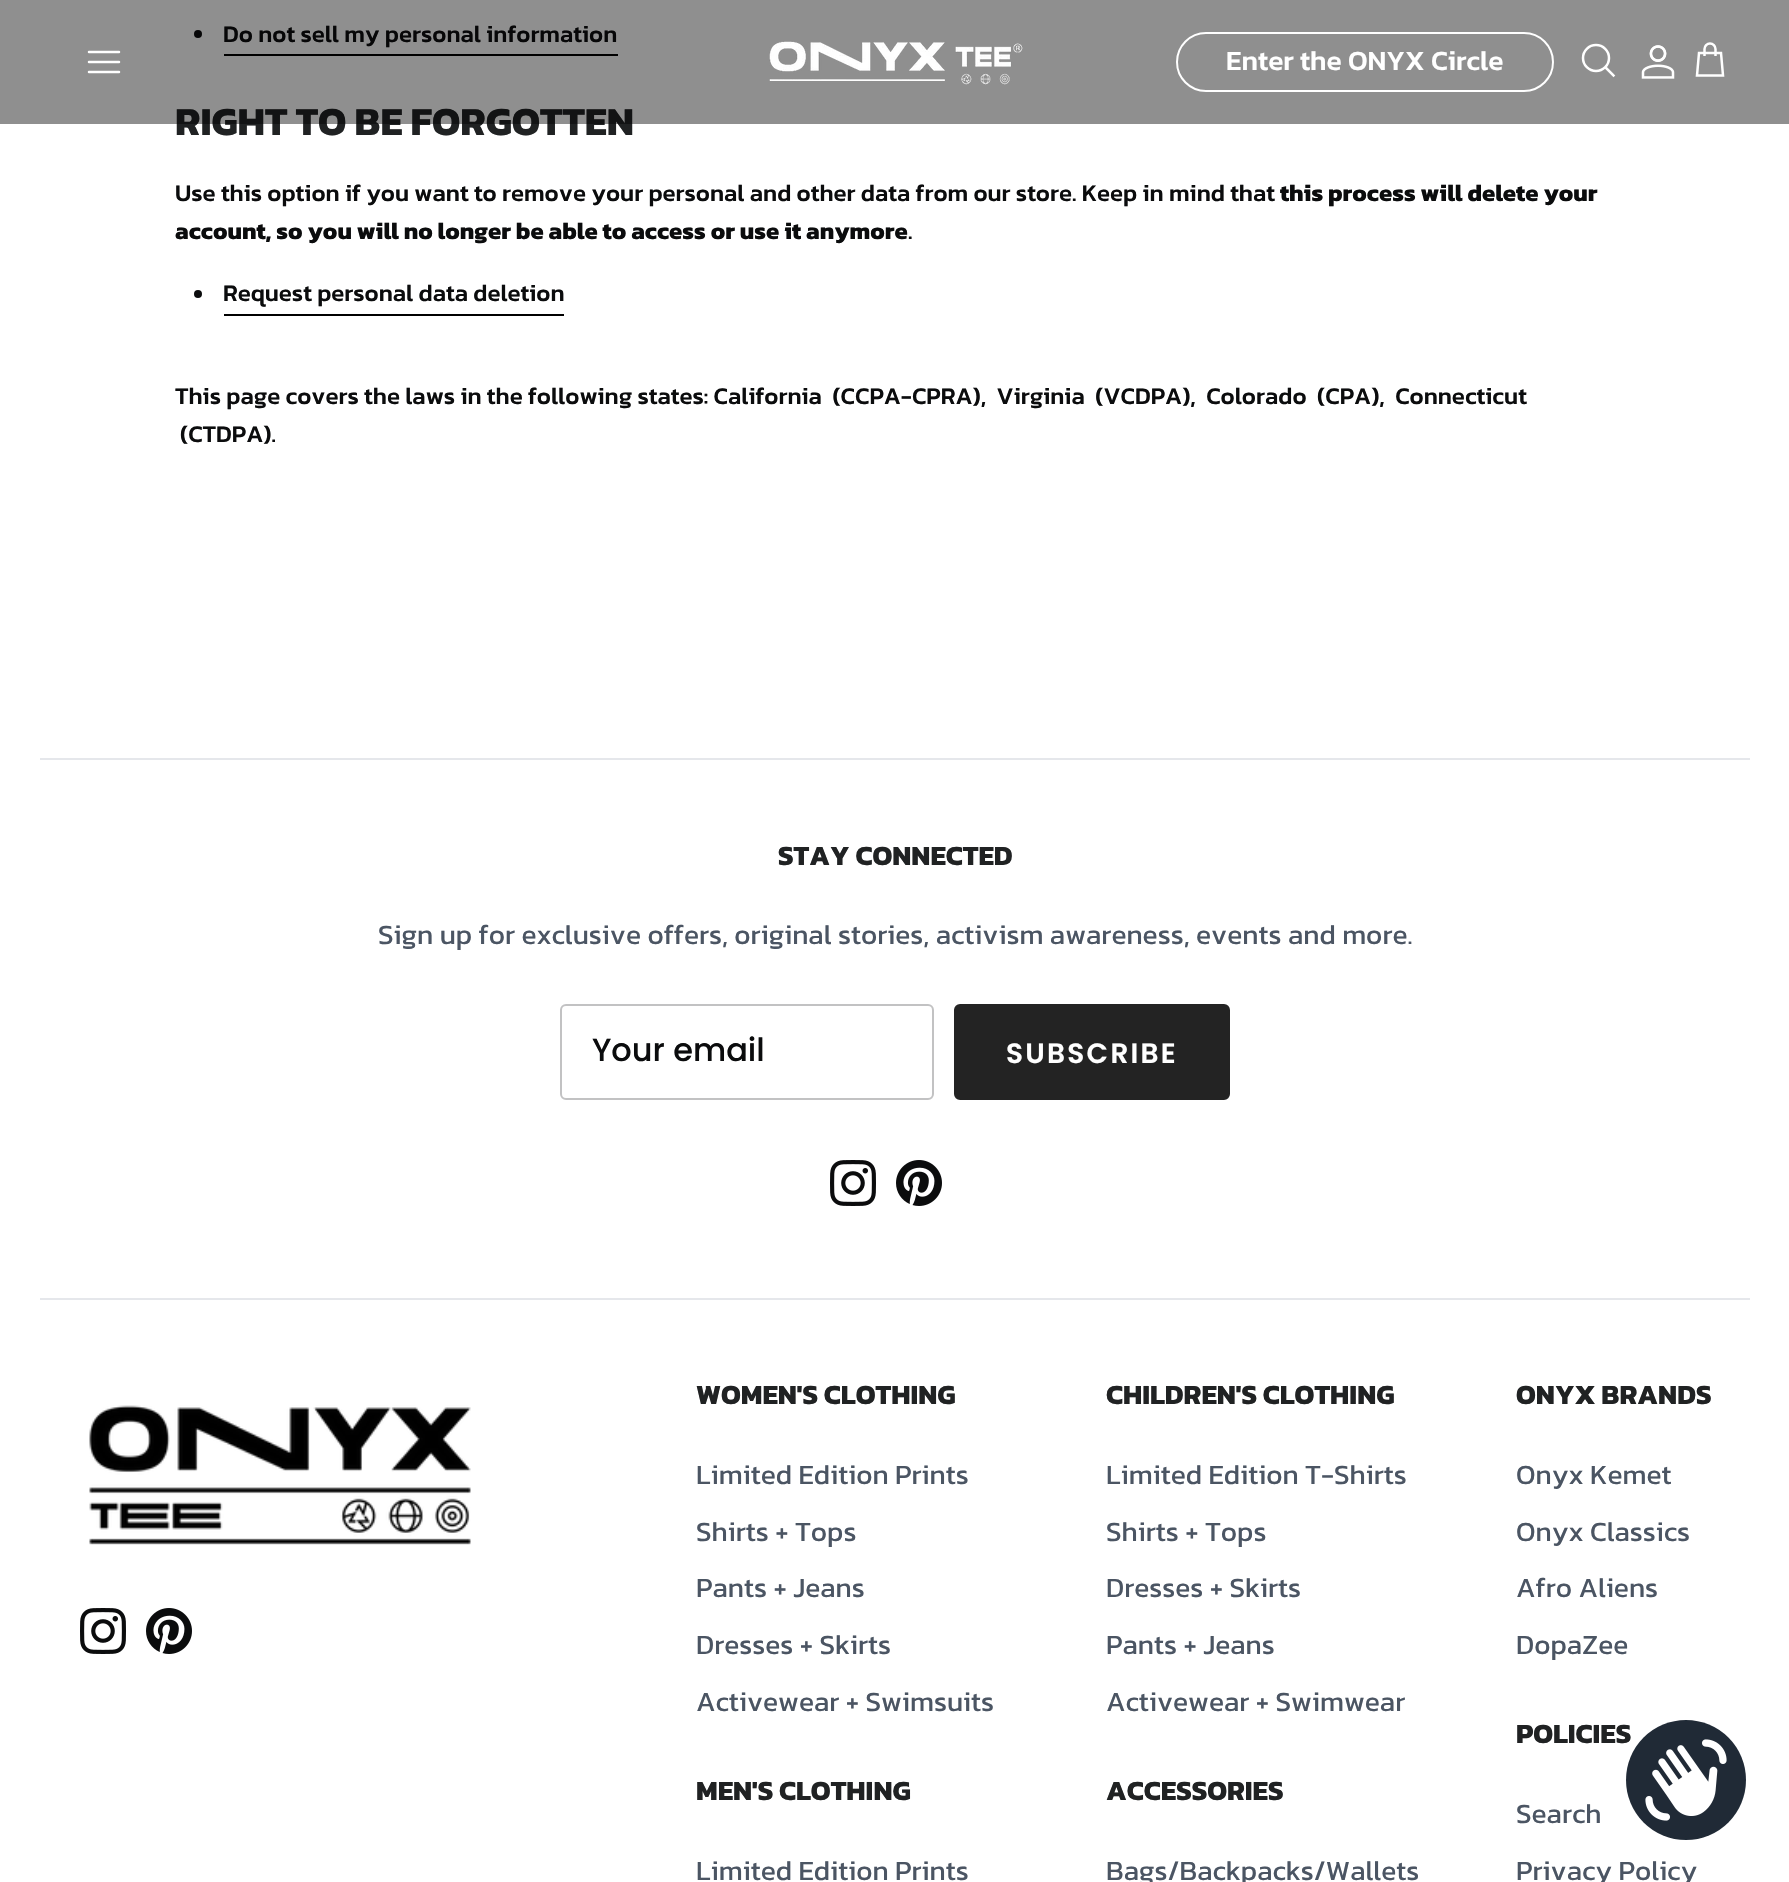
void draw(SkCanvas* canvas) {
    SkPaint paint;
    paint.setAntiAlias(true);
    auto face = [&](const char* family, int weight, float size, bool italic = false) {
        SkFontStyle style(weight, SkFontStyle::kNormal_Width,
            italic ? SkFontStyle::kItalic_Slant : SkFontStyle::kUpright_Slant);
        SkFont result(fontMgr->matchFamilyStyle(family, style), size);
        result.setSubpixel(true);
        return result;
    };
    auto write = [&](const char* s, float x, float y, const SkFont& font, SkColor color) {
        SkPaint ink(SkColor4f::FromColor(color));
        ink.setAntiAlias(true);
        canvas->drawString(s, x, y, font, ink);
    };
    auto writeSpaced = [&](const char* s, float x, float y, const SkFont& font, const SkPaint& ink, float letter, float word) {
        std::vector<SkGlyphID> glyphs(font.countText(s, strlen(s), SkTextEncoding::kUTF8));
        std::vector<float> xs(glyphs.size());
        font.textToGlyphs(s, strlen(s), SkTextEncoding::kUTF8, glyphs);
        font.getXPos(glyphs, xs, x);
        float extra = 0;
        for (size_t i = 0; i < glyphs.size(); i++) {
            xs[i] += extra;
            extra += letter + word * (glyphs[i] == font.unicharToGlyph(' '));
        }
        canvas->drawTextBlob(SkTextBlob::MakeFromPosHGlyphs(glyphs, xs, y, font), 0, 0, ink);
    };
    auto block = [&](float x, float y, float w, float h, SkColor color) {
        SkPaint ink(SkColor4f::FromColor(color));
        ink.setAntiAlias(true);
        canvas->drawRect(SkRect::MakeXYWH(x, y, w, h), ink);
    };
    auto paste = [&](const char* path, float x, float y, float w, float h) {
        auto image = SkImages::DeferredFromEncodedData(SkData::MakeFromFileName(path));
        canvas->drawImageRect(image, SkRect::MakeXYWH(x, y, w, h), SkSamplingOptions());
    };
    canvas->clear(SK_ColorWHITE);
    paint.setColor(SkColorSetRGB(11, 12, 13));
    canvas->drawCircle(198, 34, 4, paint);
    block(224, 54, 394, 2, SK_ColorBLACK);
    auto kFont1 = face("Kanit", 500, 24);
    write("Do not sell my personal information", 223, 42, kFont1, SkColorSetRGB(11, 12, 13));
    auto kFont2 = face("Kanit", 700, 40);
    write("RIGHT TO BE FORGOTTEN", 175, 135, kFont2, SkColorSetRGB(32, 34, 35));
    write("Use this option if you want to remove your personal and other data from our store. Keep in mind that", 175, 201, kFont1, SkColorSetRGB(11, 12, 13));
    auto kFont3 = face("Kanit", 700, 24);
    write("this process will delete your", 1280, 201, kFont3, SkColorSetRGB(11, 12, 13));
    write("account, so you will no longer be able to access or use it anymore", 175, 239, kFont3, SkColorSetRGB(11, 12, 13));
    write(".", 908, 239, kFont1, SkColorSetRGB(11, 12, 13));
    canvas->drawCircle(198, 294, 4, paint);
    block(224, 314, 340, 2, SK_ColorBLACK);
    write("Request personal data deletion", 223, 301, kFont1, SkColorSetRGB(11, 12, 13));
    write("This page covers the laws in the following states: California  (CCPA-CPRA),  Virginia  (VCDPA),  Colorado  (CPA),  Connecticut", 175, 404, kFont1, SkColorSetRGB(11, 12, 13));
    write("(CTDPA).", 180, 442, kFont1, SkColorSetRGB(11, 12, 13));
    block(0, 0, 1789, 124, SkColorSetARGB(112, 0, 0, 0));
    paint.setStyle(SkPaint::kStroke_Style);
    paint.setStrokeWidth(2.5f);
    paint.setStrokeCap(SkPaint::kRound_Cap);
    paint.setStrokeJoin(SkPaint::kRound_Join);
    paint.setColor(SK_ColorWHITE);
    canvas->drawPath(SkPathBuilder().moveTo(89, 62).lineTo(119, 62).moveTo(89, 52).lineTo(119, 52).moveTo(89, 72).lineTo(119, 72).detach(), paint);
    paste("pic1.png", 769, 41, 254, 44);
    paint.setStrokeWidth(2);
    paint.setStrokeCap(SkPaint::kButt_Cap);
    paint.setStrokeJoin(SkPaint::kMiter_Join);
    canvas->drawRoundRect(SkRect::MakeXYWH(1177, 33, 376, 58), 29, 29, paint);
    auto kFont4 = face("Kanit", 500, 28);
    write("Enter the ONYX Circle", 1226, 70, kFont4, SK_ColorWHITE);
    paint.setStrokeWidth(2.5f);
    canvas->drawCircle(1596, 58, 13, paint);
    paint.setStrokeCap(SkPaint::kSquare_Cap);
    canvas->drawPath(SkPathBuilder().moveTo(1606.5f, 68.5f).lineTo(1613.5f, 75.5f).detach(), paint);
    paste("pic2.png", 1641, 45, 34, 34);
    paint.setStrokeCap(SkPaint::kButt_Cap);
    canvas->drawPath(SkPathBuilder().moveTo(1715.5f, 56).lineTo(1715.5f, 49).cubicTo(1715.5f, 46, 1713, 43.5f, 1710, 43.5f).cubicTo(1707, 43.5f, 1704.5f, 46, 1704.5f, 49).lineTo(1704.5f, 56).moveTo(1699, 53).lineTo(1721, 53).lineTo(1723, 75.5f).lineTo(1697, 75.5f).close().detach(), paint);
    block(40, 758, 1710, 2, SkColorSetRGB(229, 231, 235));
    block(40, 1298, 1710, 2, SkColorSetRGB(229, 231, 235));
    auto kFont5 = face("Kanit", 700, 28);
    write("STAY CONNECTED", 778, 865, kFont5, SkColorSetRGB(32, 34, 35));
    auto kFont6 = face("Kanit", 400, 28);
    write("Sign up for exclusive offers, original stories, activism awareness, events and more.", 378, 944, kFont6, SkColorSetRGB(75, 85, 99));
    paint.setStrokeWidth(2);
    paint.setColor(SkColorSetRGB(194, 194, 195));
    canvas->drawRoundRect(SkRect::MakeXYWH(561, 1005, 372, 94), 5, 5, paint);
    auto kFont7 = face("Poppins", 500, 32);
    write("Your email", 592, 1061, kFont7, SkColorSetRGB(11, 12, 13));
    paint.setStyle(SkPaint::kFill_Style);
    paint.setColor(SkColorSetRGB(35, 35, 35));
    canvas->drawRoundRect(SkRect::MakeXYWH(955, 1005, 274, 94), 5, 5, paint);
    paint.setStyle(SkPaint::kStroke_Style);
    canvas->drawRoundRect(SkRect::MakeXYWH(955, 1005, 274, 94), 5, 5, paint);
    auto kFont8 = face("Poppins", 600, 28);
    paint.setStyle(SkPaint::kFill_Style);
    paint.setColor(SK_ColorWHITE);
    writeSpaced("SUBSCRIBE", 1006, 1063, kFont8, paint, 2.25f, 0);
    paste("pic3.png", 830, 1160, 46, 46);
    paste("pic4.png", 896, 1160, 46, 46);
    paste("pic5.png", 89, 1405, 382, 140);
    paste("pic3.png", 80, 1608, 46, 46);
    paste("pic4.png", 146, 1608, 46, 46);
    write("WOMEN'S CLOTHING", 696, 1404, kFont5, SkColorSetRGB(32, 34, 35));
    write("Limited Edition Prints", 696, 1484, kFont6, SkColorSetRGB(75, 85, 99));
    write("Shirts + Tops", 696, 1541, kFont6, SkColorSetRGB(75, 85, 99));
    write("Pants + Jeans", 696, 1597, kFont6, SkColorSetRGB(75, 85, 99));
    write("Dresses + Skirts", 696, 1654, kFont6, SkColorSetRGB(75, 85, 99));
    write("Activewear + Swimsuits", 696, 1711, kFont6, SkColorSetRGB(75, 85, 99));
    write("MEN'S CLOTHING", 696, 1800, kFont5, SkColorSetRGB(32, 34, 35));
    write("Limited Edition Prints", 696, 1880, kFont6, SkColorSetRGB(75, 85, 99));
    write("CHILDREN'S CLOTHING", 1106, 1404, kFont5, SkColorSetRGB(32, 34, 35));
    write("Limited Edition T-Shirts", 1106, 1484, kFont6, SkColorSetRGB(75, 85, 99));
    write("Shirts + Tops", 1106, 1541, kFont6, SkColorSetRGB(75, 85, 99));
    write("Dresses + Skirts", 1106, 1597, kFont6, SkColorSetRGB(75, 85, 99));
    write("Pants + Jeans", 1106, 1654, kFont6, SkColorSetRGB(75, 85, 99));
    write("Activewear + Swimwear", 1106, 1711, kFont6, SkColorSetRGB(75, 85, 99));
    write("ACCESSORIES", 1106, 1800, kFont5, SkColorSetRGB(32, 34, 35));
    write("Bags/Backpacks/Wallets", 1106, 1880, kFont6, SkColorSetRGB(75, 85, 99));
    write("ONYX BRANDS", 1516, 1404, kFont5, SkColorSetRGB(32, 34, 35));
    write("Onyx Kemet", 1516, 1484, kFont6, SkColorSetRGB(75, 85, 99));
    write("Onyx Classics", 1516, 1541, kFont6, SkColorSetRGB(75, 85, 99));
    write("Afro Aliens", 1516, 1597, kFont6, SkColorSetRGB(75, 85, 99));
    write("DopaZee", 1516, 1654, kFont6, SkColorSetRGB(75, 85, 99));
    write("POLICIES", 1516, 1743, kFont5, SkColorSetRGB(32, 34, 35));
    write("Search", 1516, 1823, kFont6, SkColorSetRGB(75, 85, 99));
    write("Privacy Policy", 1516, 1880, kFont6, SkColorSetRGB(75, 85, 99));
    paint.setColor(SkColorSetRGB(32, 42, 54));
    canvas->drawCircle(1686, 1780, 60, paint);
    paste("pic6.png", 1645, 1739, 82, 82);
}
